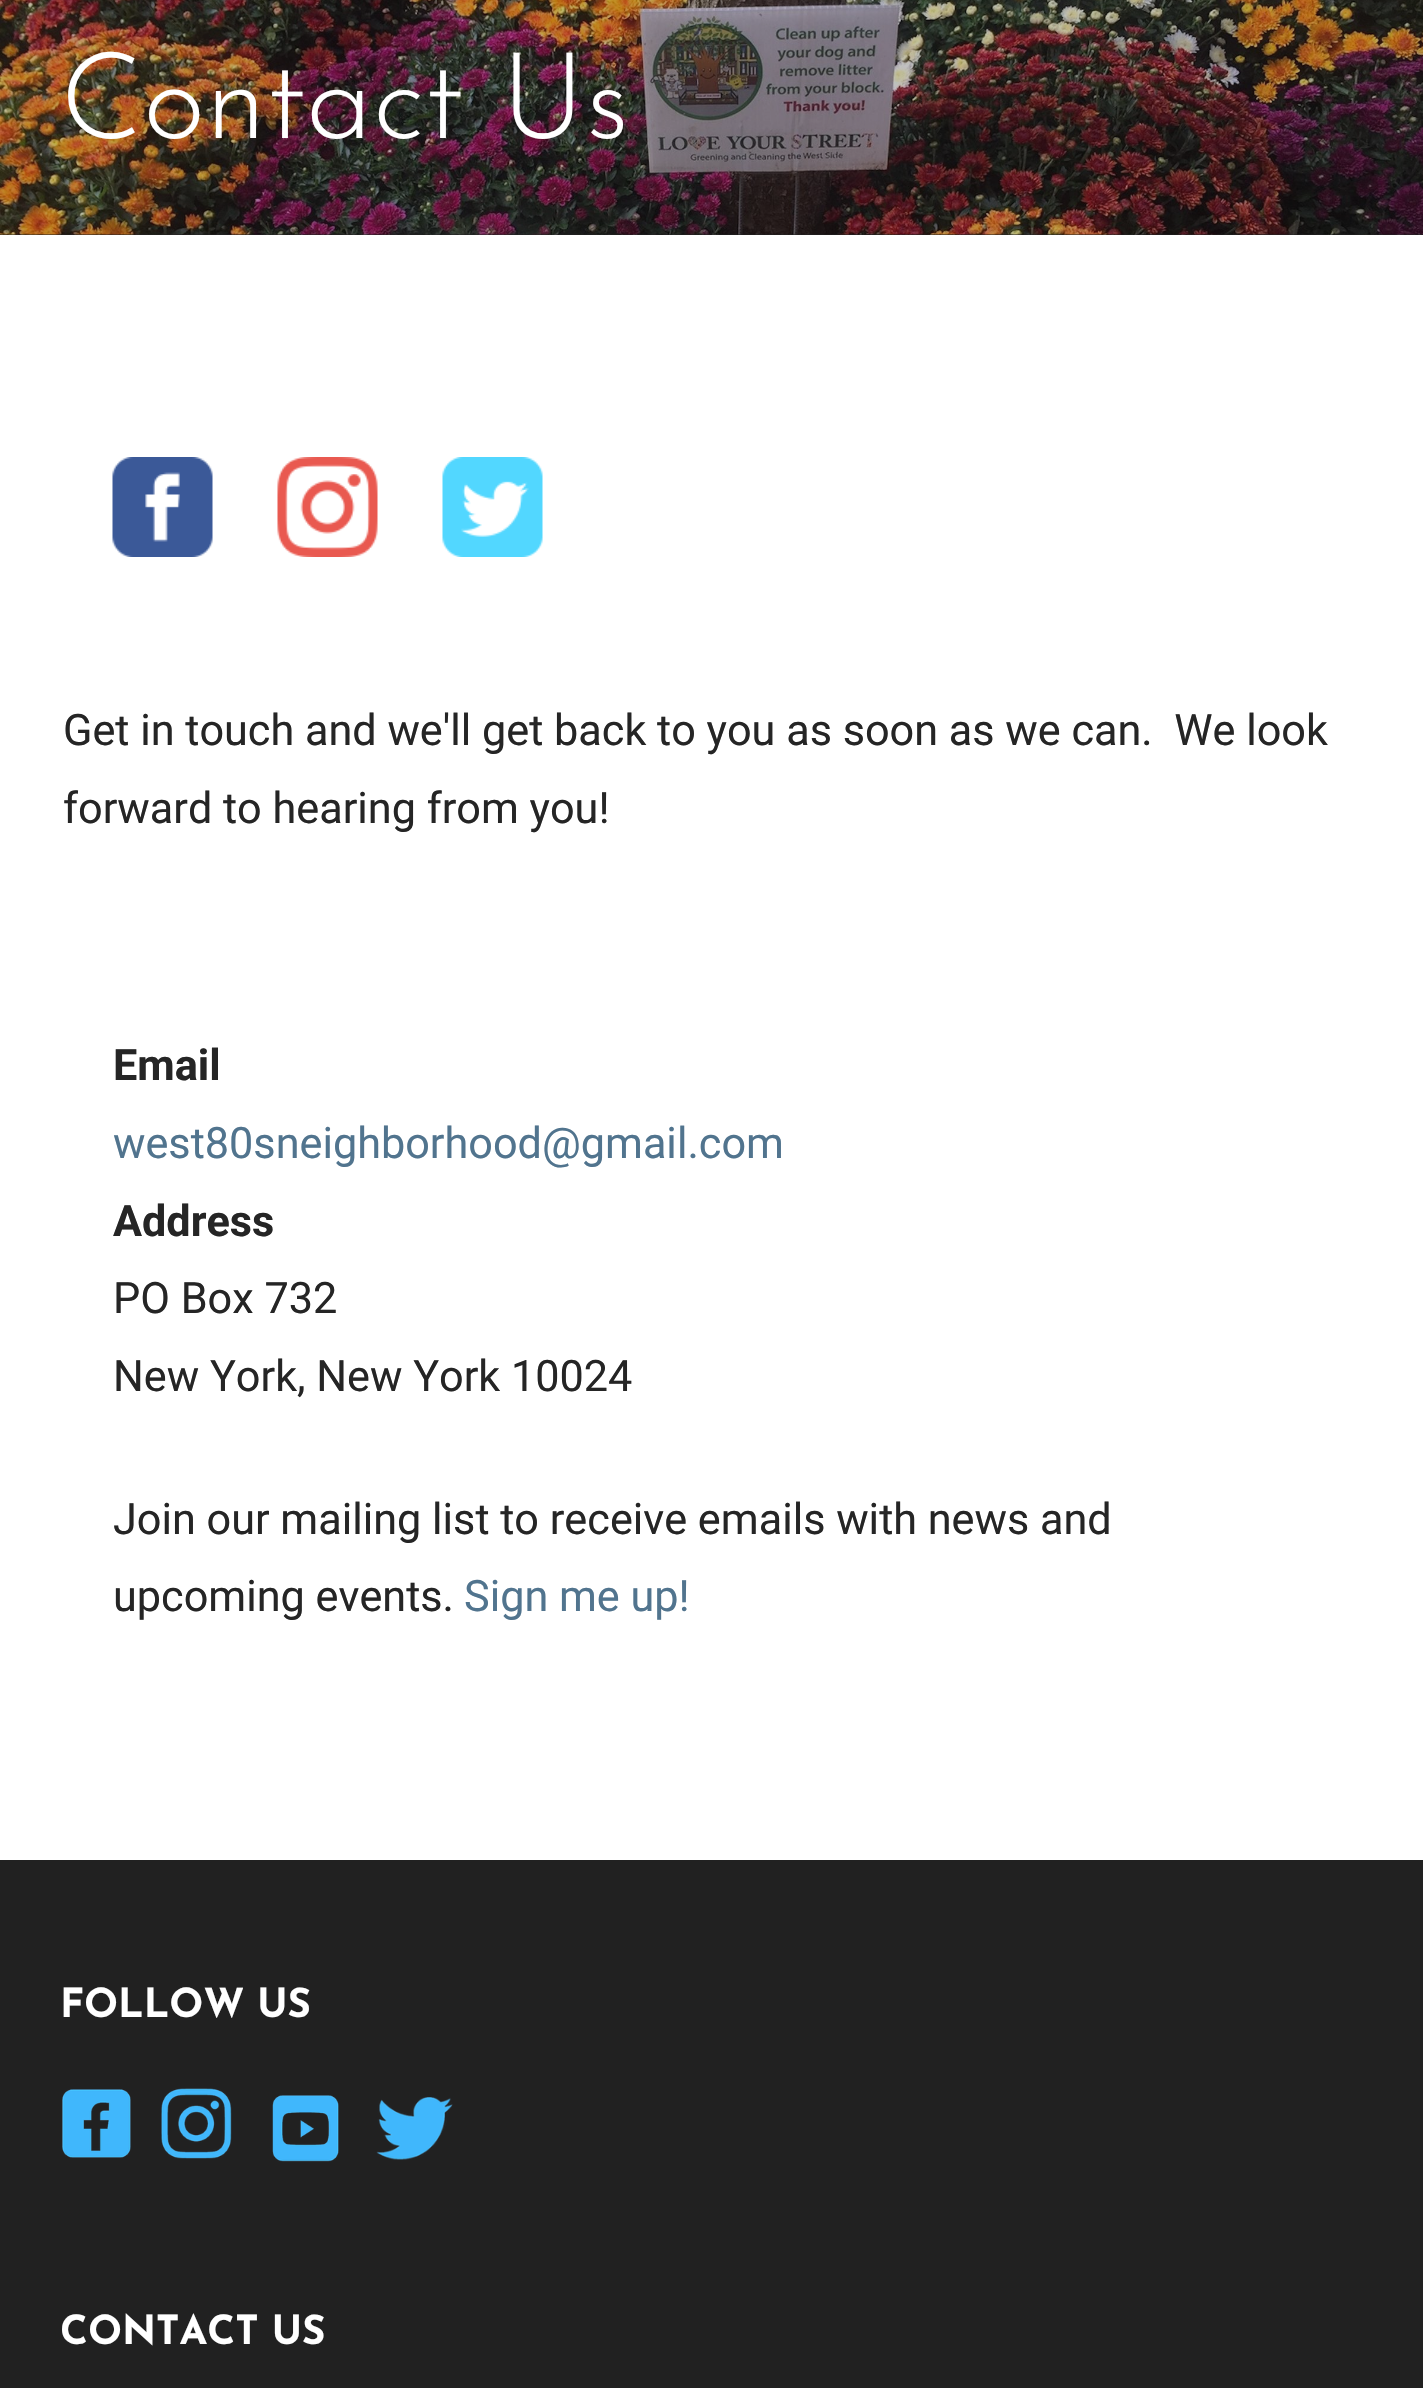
void draw(SkCanvas* canvas) {
    SkPaint paint;
    paint.setAntiAlias(true);
    auto face = [&](const char* family, int weight, float size, bool italic = false) {
        SkFontStyle style(weight, SkFontStyle::kNormal_Width,
            italic ? SkFontStyle::kItalic_Slant : SkFontStyle::kUpright_Slant);
        SkFont result(fontMgr->matchFamilyStyle(family, style), size);
        result.setSubpixel(true);
        return result;
    };
    auto write = [&](const char* s, float x, float y, const SkFont& font, SkColor color) {
        SkPaint ink(SkColor4f::FromColor(color));
        ink.setAntiAlias(true);
        canvas->drawString(s, x, y, font, ink);
    };
    auto block = [&](float x, float y, float w, float h, SkColor color) {
        SkPaint ink(SkColor4f::FromColor(color));
        ink.setAntiAlias(true);
        canvas->drawRect(SkRect::MakeXYWH(x, y, w, h), ink);
    };
    auto paste = [&](const char* path, float x, float y, float w, float h) {
        auto image = SkImages::DeferredFromEncodedData(SkData::MakeFromFileName(path));
        canvas->drawImageRect(image, SkRect::MakeXYWH(x, y, w, h), SkSamplingOptions());
    };
    canvas->clear(SK_ColorWHITE);
    block(0, 234, 1423, 1, SkColorSetRGB(33, 33, 33));
    paste("pic1.png", 0, 0, 1423, 235);
    auto kFont1 = face("Josefin Sans", 300, 120);
    write("Contact Us", 60, 138, kFont1, SK_ColorWHITE);
    paste("pic2.png", 112, 457, 101, 100);
    paste("pic3.png", 277, 457, 101, 100);
    paste("pic4.png", 442, 457, 101, 100);
    auto kFont2 = face("Roboto", 400, 43.2f);
    write("Get in touch and we'll get back to you as soon as we can.  We look", 63, 745, kFont2, SkColorSetRGB(37, 37, 37));
    write("forward to hearing from you!", 63, 823, kFont2, SkColorSetRGB(37, 37, 37));
    auto kFont3 = face("Roboto", 700, 43.2f);
    write("Email", 113, 1080, kFont3, SkColorSetRGB(37, 37, 37));
    write("west80sneighborhood@gmail.com", 113, 1158, kFont2, SkColorSetRGB(81, 116, 142));
    write("Address", 113, 1236, kFont3, SkColorSetRGB(37, 37, 37));
    write("PO Box 732", 113, 1313, kFont2, SkColorSetRGB(37, 37, 37));
    write("New York, New York 10024", 113, 1391, kFont2, SkColorSetRGB(37, 37, 37));
    write("Join our mailing list to receive emails with news and", 113, 1534, kFont2, SkColorSetRGB(37, 37, 37));
    write("upcoming events.", 113, 1611, kFont2, SkColorSetRGB(37, 37, 37));
    write("Sign me up!", 464, 1611, kFont2, SkColorSetRGB(81, 116, 142));
    block(0, 1860, 1423, 528, SkColorSetRGB(33, 33, 33));
    auto kFont4 = face("Josefin Sans", 700, 40);
    write("FOLLOW US", 60, 2017, kFont4, SK_ColorWHITE);
    paste("pic5.png", 62, 2089, 69, 69);
    paste("pic6.png", 161, 2088, 71, 71);
    paste("pic7.png", 272, 2095, 67, 67);
    paste("pic8.png", 376, 2097, 77, 63);
    write("CONTACT US", 60, 2344, kFont4, SK_ColorWHITE);
}
